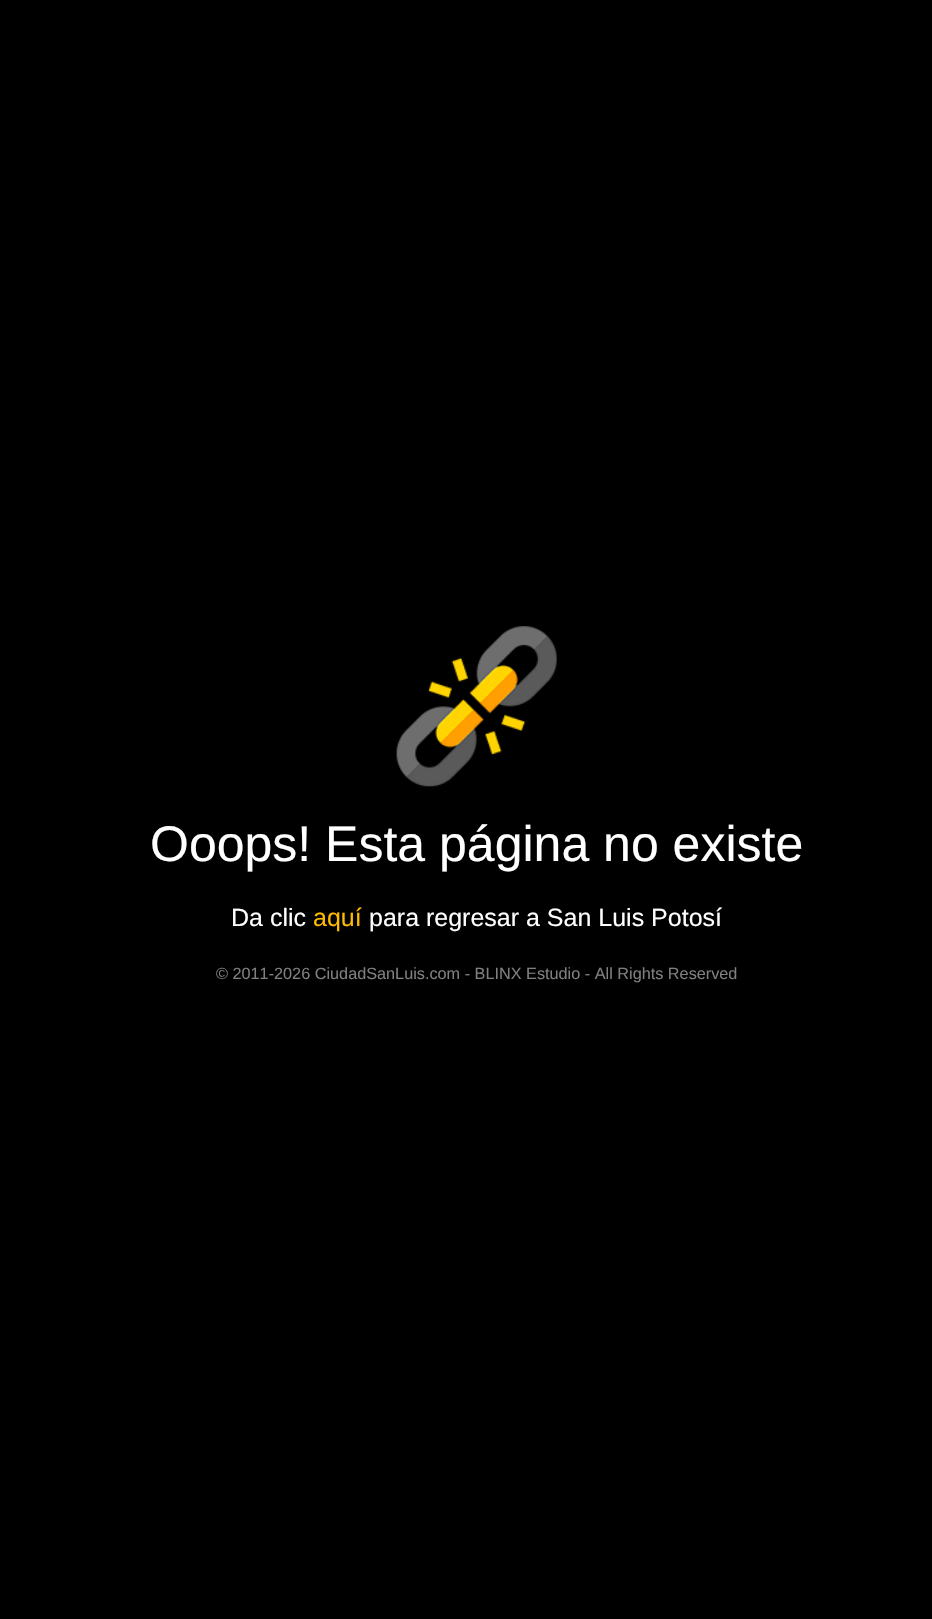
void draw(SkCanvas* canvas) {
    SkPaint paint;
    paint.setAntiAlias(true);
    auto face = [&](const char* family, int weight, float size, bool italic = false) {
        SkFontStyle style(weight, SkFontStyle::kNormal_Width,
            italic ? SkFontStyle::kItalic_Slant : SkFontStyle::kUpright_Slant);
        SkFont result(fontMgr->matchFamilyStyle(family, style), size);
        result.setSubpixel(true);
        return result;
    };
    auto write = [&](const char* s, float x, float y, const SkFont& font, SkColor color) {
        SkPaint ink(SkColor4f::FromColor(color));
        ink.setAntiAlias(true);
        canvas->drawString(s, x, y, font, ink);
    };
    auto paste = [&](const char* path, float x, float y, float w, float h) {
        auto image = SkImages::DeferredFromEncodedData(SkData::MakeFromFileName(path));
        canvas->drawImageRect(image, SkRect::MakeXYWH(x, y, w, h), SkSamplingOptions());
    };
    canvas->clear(SK_ColorBLACK);
    paste("pic1.png", 396, 626, 161, 161);
    auto kFont1 = face("Liberation Sans", 400, 50);
    write("Ooops! Esta página no existe", 150, 861, kFont1, SK_ColorWHITE);
    auto kFont2 = face("Liberation Sans", 400, 25);
    write("Da clic", 231, 926, kFont2, SK_ColorWHITE);
    write("aquí", 313, 926, kFont2, SkColorSetRGB(255, 187, 0));
    write("para regresar a San Luis Potosí", 369, 926, kFont2, SK_ColorWHITE);
    auto kFont3 = face("Liberation Sans", 400, 16.25f);
    write("© 2011-2026 CiudadSanLuis.com - BLINX Estudio - All Rights Reserved", 216, 979, kFont3, SkColorSetRGB(128, 128, 128));
}
